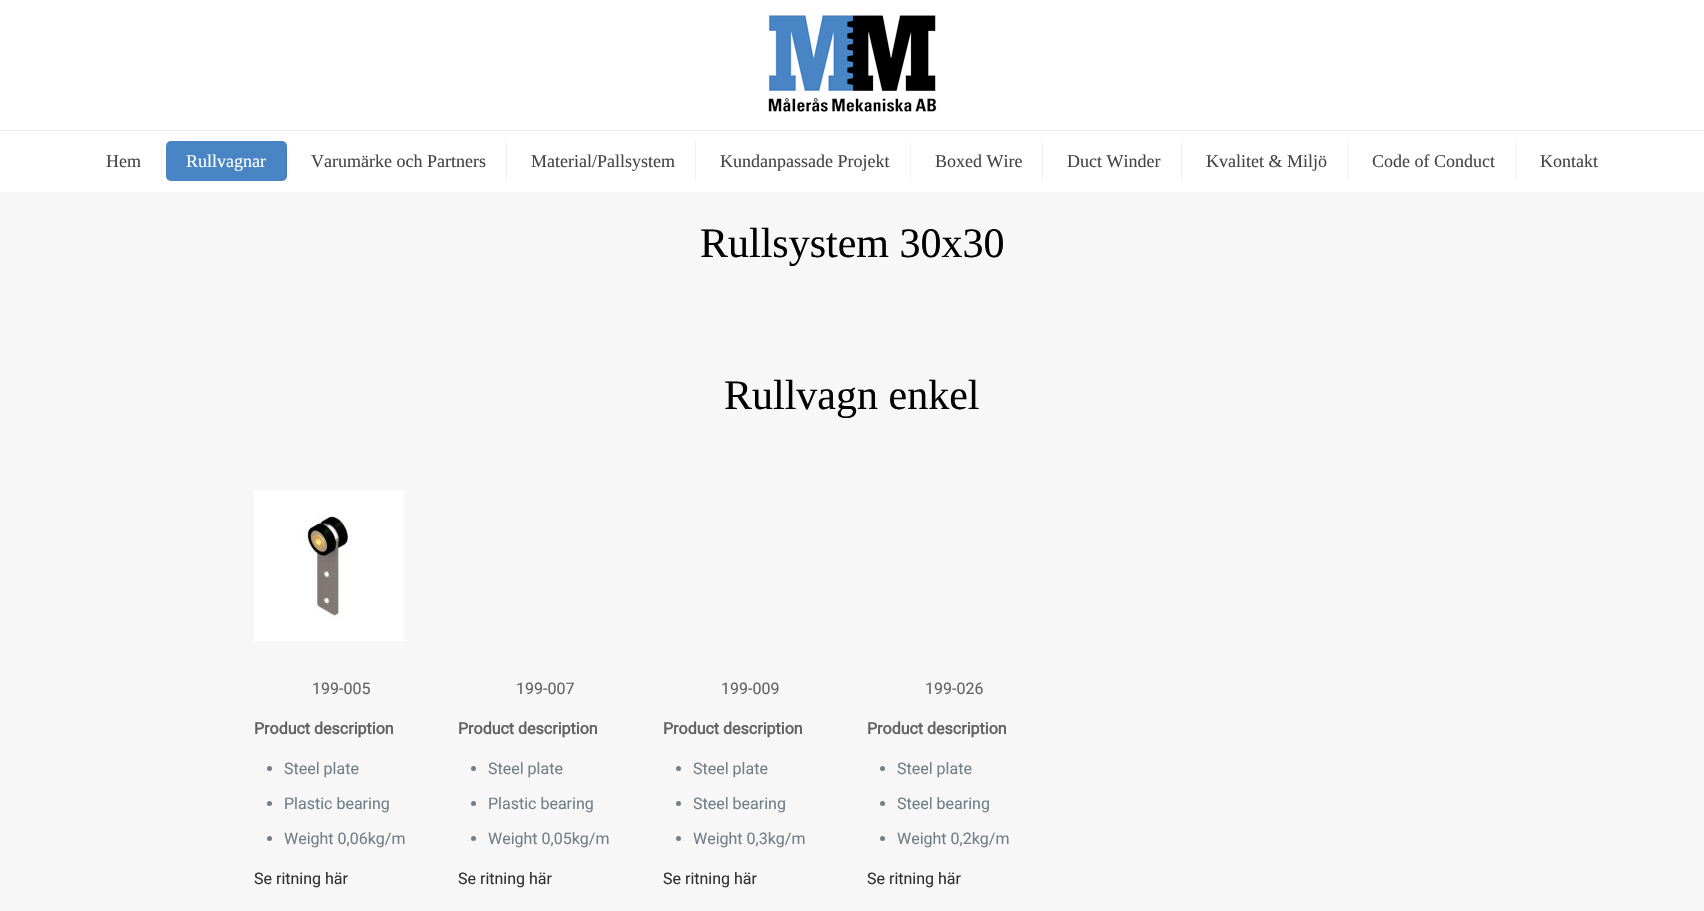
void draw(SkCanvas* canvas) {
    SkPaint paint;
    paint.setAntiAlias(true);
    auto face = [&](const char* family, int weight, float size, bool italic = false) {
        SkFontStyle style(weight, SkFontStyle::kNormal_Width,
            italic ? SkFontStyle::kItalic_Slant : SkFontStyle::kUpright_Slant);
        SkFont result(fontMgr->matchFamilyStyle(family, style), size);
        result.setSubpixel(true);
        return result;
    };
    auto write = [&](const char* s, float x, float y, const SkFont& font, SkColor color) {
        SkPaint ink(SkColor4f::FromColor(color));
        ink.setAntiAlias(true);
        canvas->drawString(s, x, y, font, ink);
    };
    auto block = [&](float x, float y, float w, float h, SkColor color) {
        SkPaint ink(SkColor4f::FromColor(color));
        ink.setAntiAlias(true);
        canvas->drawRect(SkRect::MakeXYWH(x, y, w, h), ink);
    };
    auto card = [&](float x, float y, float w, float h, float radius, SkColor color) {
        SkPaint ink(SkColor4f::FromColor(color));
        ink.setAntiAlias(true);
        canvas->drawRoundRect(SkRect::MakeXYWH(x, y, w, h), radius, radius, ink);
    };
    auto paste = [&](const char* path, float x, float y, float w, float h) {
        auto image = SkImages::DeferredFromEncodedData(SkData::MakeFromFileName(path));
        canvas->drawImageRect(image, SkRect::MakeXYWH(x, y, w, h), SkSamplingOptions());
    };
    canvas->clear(SkColorSetRGB(247, 247, 247));
    block(0, 0, 1704, 192, SK_ColorWHITE);
    block(0, 130, 1704, 1, SkColorSetRGB(235, 235, 235));
    paste("pic1.png", 768, 15, 169, 97);
    block(161, 141, 1, 40, SkColorSetRGB(242, 242, 242));
    auto kFont1 = face("Tinos", 400, 18);
    write("Hem", 106, 167, kFont1, SkColorSetRGB(68, 68, 68));
    card(166, 141, 121, 40, 5, SkColorSetRGB(73, 132, 197));
    block(286, 141, 1, 40, SkColorSetARGB(13, 0, 0, 0));
    write("Rullvagnar", 186, 167, kFont1, SK_ColorWHITE);
    block(506, 141, 1, 40, SkColorSetRGB(242, 242, 242));
    write("Varumärke och Partners", 311, 167, kFont1, SkColorSetRGB(68, 68, 68));
    block(695, 141, 1, 40, SkColorSetRGB(242, 242, 242));
    write("Material/Pallsystem", 531, 167, kFont1, SkColorSetRGB(68, 68, 68));
    block(910, 141, 1, 40, SkColorSetRGB(242, 242, 242));
    write("Kundanpassade Projekt", 720, 167, kFont1, SkColorSetRGB(68, 68, 68));
    block(1042, 141, 1, 40, SkColorSetRGB(242, 242, 242));
    write("Boxed Wire", 935, 167, kFont1, SkColorSetRGB(68, 68, 68));
    block(1181, 141, 1, 40, SkColorSetRGB(242, 242, 242));
    write("Duct Winder", 1067, 167, kFont1, SkColorSetRGB(68, 68, 68));
    block(1347, 141, 1, 40, SkColorSetRGB(242, 242, 242));
    write("Kvalitet & Miljö", 1206, 167, kFont1, SkColorSetRGB(68, 68, 68));
    block(1515, 141, 1, 40, SkColorSetRGB(242, 242, 242));
    write("Code of Conduct", 1372, 167, kFont1, SkColorSetRGB(68, 68, 68));
    write("Kontakt", 1540, 167, kFont1, SkColorSetRGB(68, 68, 68));
    auto kFont2 = face("Tinos", 400, 42);
    write("Rullsystem 30x30", 700, 257, kFont2, SK_ColorBLACK);
    write("Rullvagn enkel", 724, 409, kFont2, SK_ColorBLACK);
    paste("pic2.png", 254, 491, 150, 150);
    auto kFont3 = face("Roboto", 400, 16);
    write("199-005", 312, 694, kFont3, SkColorSetRGB(98, 98, 98));
    auto kFont4 = face("Roboto", 700, 16);
    write("Product description", 254, 734, kFont4, SkColorSetRGB(98, 98, 98));
    paint.setColor(SkColorSetRGB(115, 126, 134));
    canvas->drawCircle(269.5f, 768.5f, 2.5f, paint);
    write("Steel plate", 284, 774, kFont3, SkColorSetRGB(115, 126, 134));
    canvas->drawCircle(269.5f, 803.5f, 2.5f, paint);
    write("Plastic bearing", 284, 809, kFont3, SkColorSetRGB(115, 126, 134));
    canvas->drawCircle(269.5f, 838.5f, 2.5f, paint);
    write("Weight 0,06kg/m", 284, 844, kFont3, SkColorSetRGB(115, 126, 134));
    write("Se ritning här", 254, 884, kFont3, SkColorSetRGB(49, 49, 49));
    write("199-007", 516, 694, kFont3, SkColorSetRGB(98, 98, 98));
    write("Product description", 458, 734, kFont4, SkColorSetRGB(98, 98, 98));
    canvas->drawCircle(473.5f, 768.5f, 2.5f, paint);
    write("Steel plate", 488, 774, kFont3, SkColorSetRGB(115, 126, 134));
    canvas->drawCircle(473.5f, 803.5f, 2.5f, paint);
    write("Plastic bearing", 488, 809, kFont3, SkColorSetRGB(115, 126, 134));
    canvas->drawCircle(473.5f, 838.5f, 2.5f, paint);
    write("Weight 0,05kg/m", 488, 844, kFont3, SkColorSetRGB(115, 126, 134));
    write("Se ritning här", 458, 884, kFont3, SkColorSetRGB(49, 49, 49));
    write("199-009", 721, 694, kFont3, SkColorSetRGB(98, 98, 98));
    write("Product description", 663, 734, kFont4, SkColorSetRGB(98, 98, 98));
    canvas->drawCircle(678.5f, 768.5f, 2.5f, paint);
    write("Steel plate", 693, 774, kFont3, SkColorSetRGB(115, 126, 134));
    canvas->drawCircle(678.5f, 803.5f, 2.5f, paint);
    write("Steel bearing", 693, 809, kFont3, SkColorSetRGB(115, 126, 134));
    canvas->drawCircle(678.5f, 838.5f, 2.5f, paint);
    write("Weight 0,3kg/m", 693, 844, kFont3, SkColorSetRGB(115, 126, 134));
    write("Se ritning här", 663, 884, kFont3, SkColorSetRGB(49, 49, 49));
    write("199-026", 925, 694, kFont3, SkColorSetRGB(98, 98, 98));
    write("Product description", 867, 734, kFont4, SkColorSetRGB(98, 98, 98));
    canvas->drawCircle(882.5f, 768.5f, 2.5f, paint);
    write("Steel plate", 897, 774, kFont3, SkColorSetRGB(115, 126, 134));
    canvas->drawCircle(882.5f, 803.5f, 2.5f, paint);
    write("Steel bearing", 897, 809, kFont3, SkColorSetRGB(115, 126, 134));
    canvas->drawCircle(882.5f, 838.5f, 2.5f, paint);
    write("Weight 0,2kg/m", 897, 844, kFont3, SkColorSetRGB(115, 126, 134));
    write("Se ritning här", 867, 884, kFont3, SkColorSetRGB(49, 49, 49));
}
